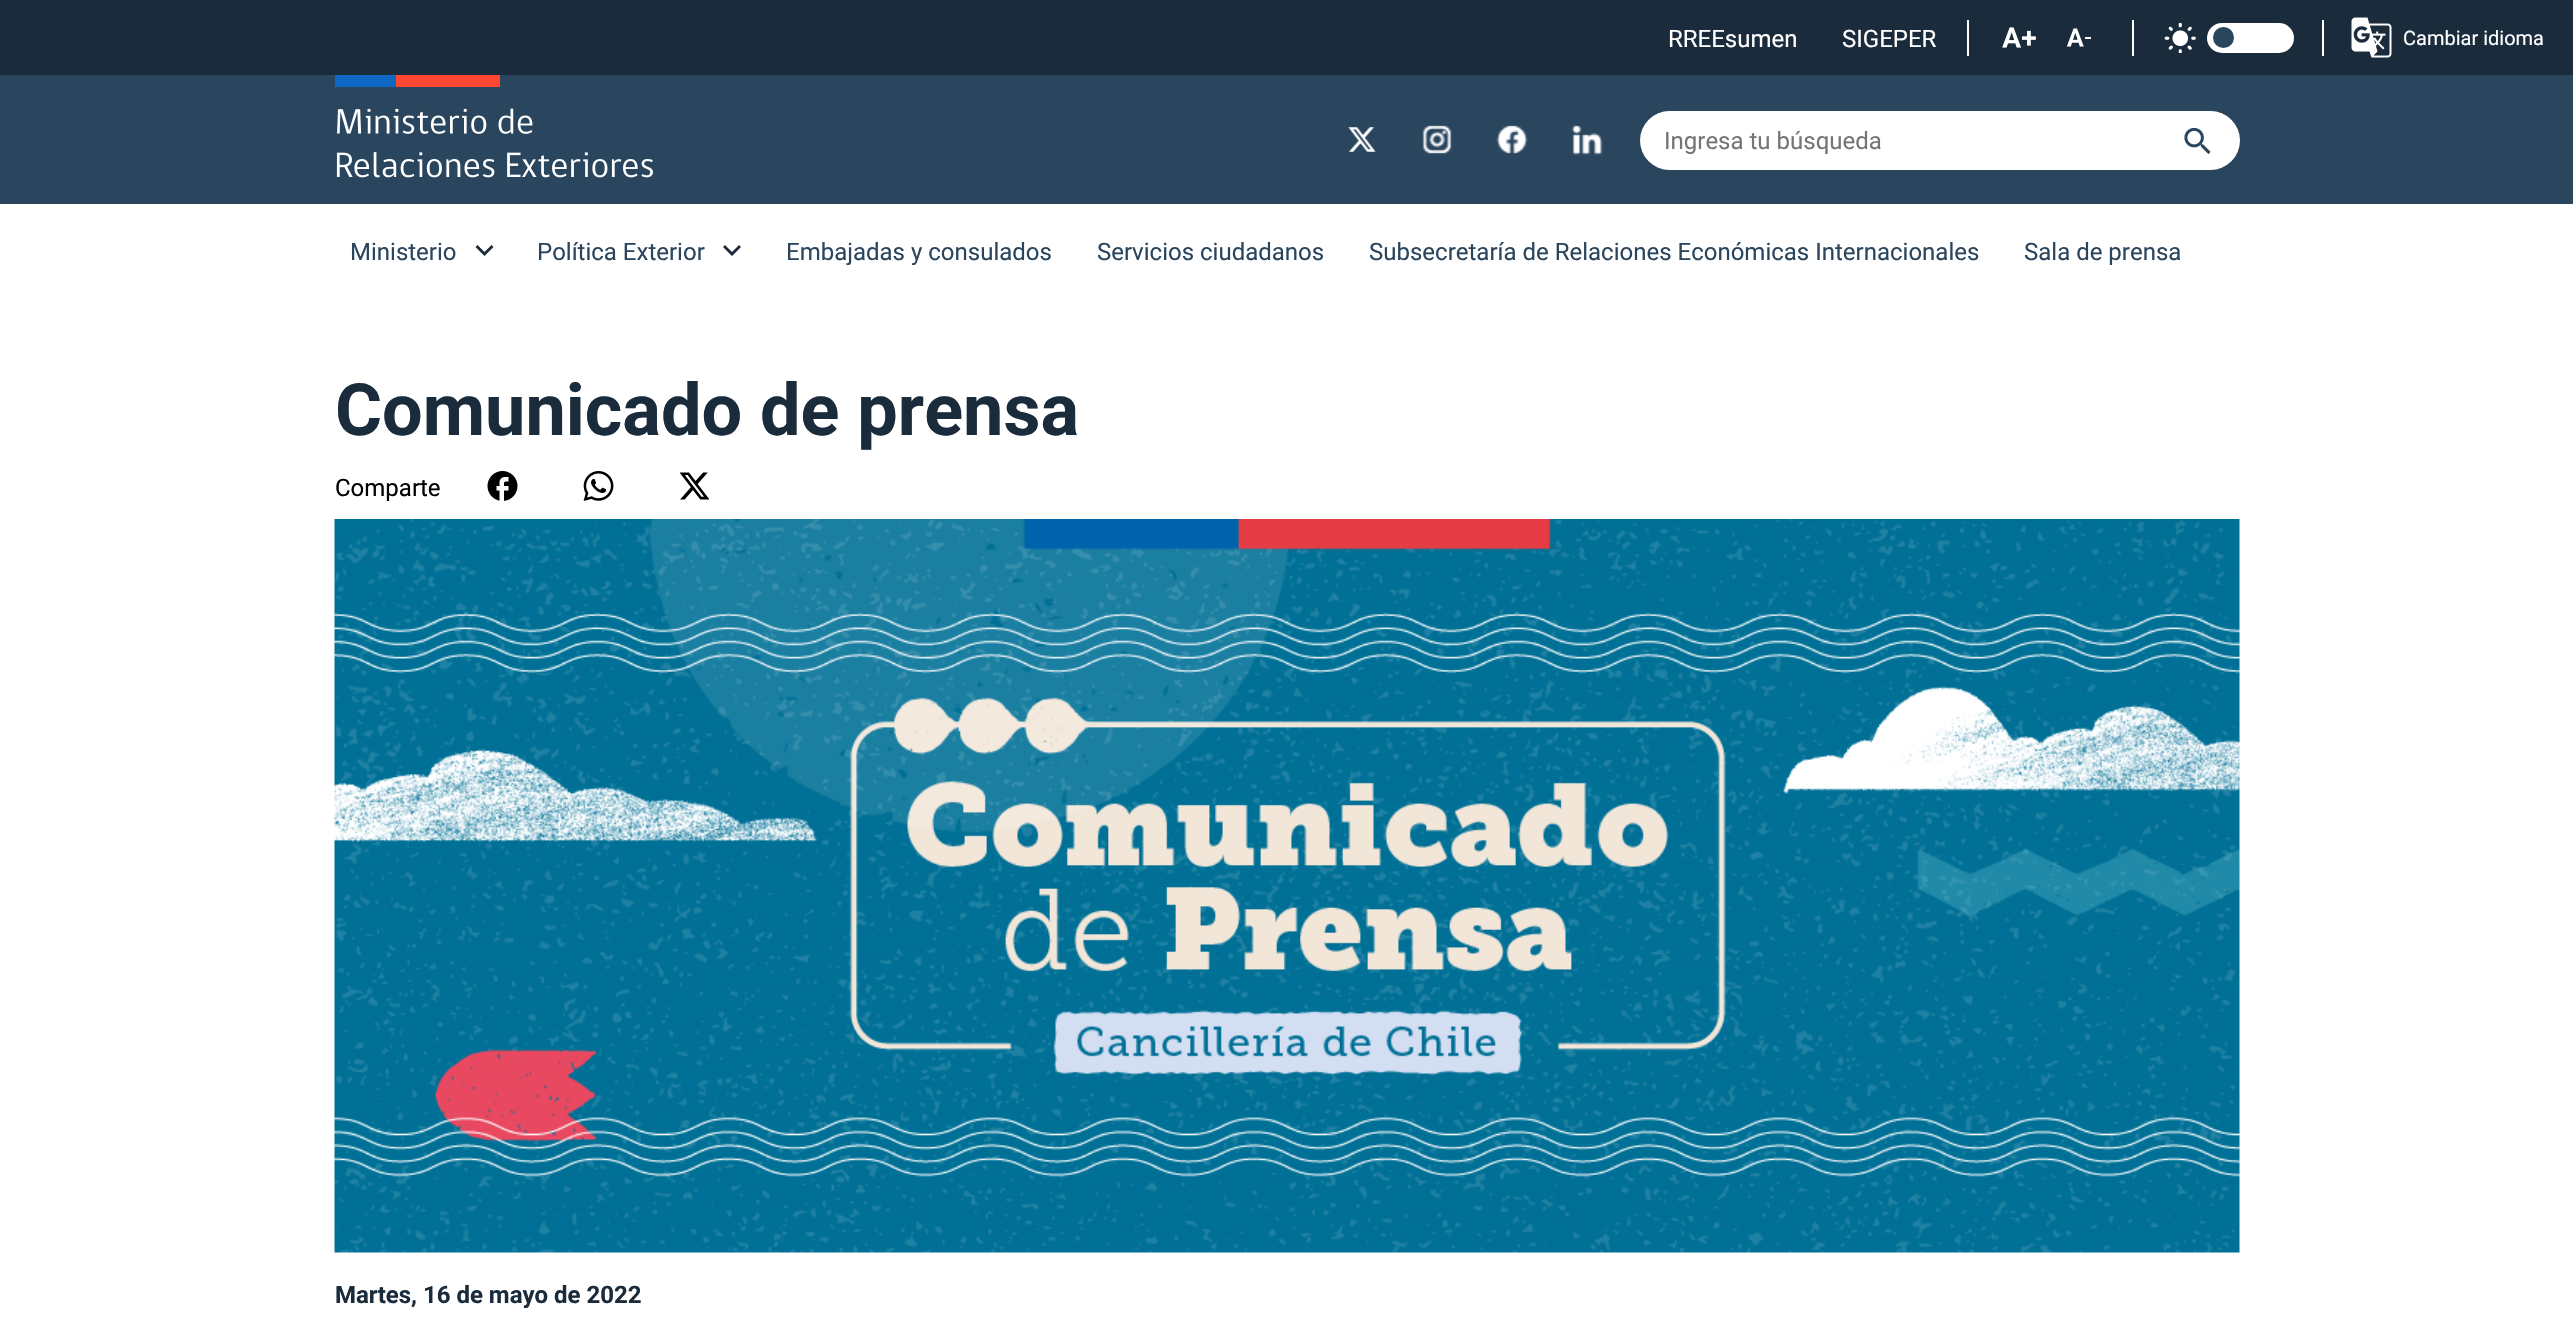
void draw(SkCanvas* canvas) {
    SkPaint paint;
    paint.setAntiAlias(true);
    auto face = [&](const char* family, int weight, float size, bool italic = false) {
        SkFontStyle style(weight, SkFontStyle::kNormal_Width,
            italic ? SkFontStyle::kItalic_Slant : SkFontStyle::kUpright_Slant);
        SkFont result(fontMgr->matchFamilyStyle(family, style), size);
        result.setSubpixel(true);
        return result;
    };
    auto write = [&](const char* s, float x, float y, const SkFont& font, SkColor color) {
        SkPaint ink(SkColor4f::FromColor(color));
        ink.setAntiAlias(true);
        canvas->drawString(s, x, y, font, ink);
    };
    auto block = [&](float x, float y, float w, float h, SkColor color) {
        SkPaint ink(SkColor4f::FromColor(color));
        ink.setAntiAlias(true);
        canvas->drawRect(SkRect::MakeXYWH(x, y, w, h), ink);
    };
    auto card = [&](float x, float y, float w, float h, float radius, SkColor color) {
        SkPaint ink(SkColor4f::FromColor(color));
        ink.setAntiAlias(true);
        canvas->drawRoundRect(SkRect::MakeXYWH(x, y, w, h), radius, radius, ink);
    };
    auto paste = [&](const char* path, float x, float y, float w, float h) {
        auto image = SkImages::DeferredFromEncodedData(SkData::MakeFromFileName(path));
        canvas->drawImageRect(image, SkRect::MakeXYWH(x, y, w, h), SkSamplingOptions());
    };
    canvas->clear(SK_ColorWHITE);
    block(0, 0, 2573, 75, SkColorSetRGB(26, 43, 59));
    auto kFont1 = face("Roboto", 400, 24);
    write("RREEsumen", 1668, 47, kFont1, SK_ColorWHITE);
    write("SIGEPER", 1842, 47, kFont1, SK_ColorWHITE);
    block(1967, 20, 2, 36, SK_ColorWHITE);
    paste("pic1.png", 2002, 27, 34, 21);
    paste("pic2.png", 2066, 28, 25, 19);
    block(2132, 20, 2, 36, SK_ColorWHITE);
    card(2207, 23, 87, 30, 15, SK_ColorWHITE);
    paste("pic3.png", 2164, 23, 32, 30);
    paint.setColor(SkColorSetRGB(42, 69, 94));
    canvas->drawCircle(2223.5f, 37.5f, 10.5f, paint);
    block(2322, 20, 2, 36, SK_ColorWHITE);
    paste("pic4.png", 2351, 17, 41, 41);
    auto kFont2 = face("Roboto", 400, 20);
    write("Cambiar idioma", 2403, 45, kFont2, SK_ColorWHITE);
    block(0, 75, 2573, 129, SkColorSetRGB(42, 69, 94));
    paste("pic5.png", 335, 75, 318, 103);
    paste("pic6.png", 1348, 127, 28, 25);
    paste("pic7.png", 1422, 125, 30, 29);
    paste("pic8.png", 1496, 125, 32, 29);
    paste("pic9.png", 1571, 125, 32, 30);
    card(1640, 111, 600, 59, 29.5f, SK_ColorWHITE);
    write("Ingresa tu búsqueda", 1664, 149, kFont1, SkColorSetRGB(117, 117, 117));
    paste("pic10.png", 2184, 127, 27, 27);
    paint.setColor(SkColorSetRGB(26, 43, 59));
    canvas->drawPath(SkPathBuilder().moveTo(491.5f, 245).lineTo(484.5f, 252).lineTo(477.5f, 245).lineTo(475.5f, 247).lineTo(484.5f, 256).lineTo(493.5f, 247).close().detach(), paint);
    write("Ministerio", 350, 260, kFont1, SkColorSetRGB(42, 69, 94));
    canvas->drawPath(SkPathBuilder().moveTo(739, 245).lineTo(732, 252).lineTo(725, 245).lineTo(723, 247).lineTo(732, 256).lineTo(741, 247).close().detach(), paint);
    write("Política Exterior", 537, 260, kFont1, SkColorSetRGB(42, 69, 94));
    write("Embajadas y consulados", 786, 260, kFont1, SkColorSetRGB(42, 69, 94));
    write("Servicios ciudadanos", 1097, 260, kFont1, SkColorSetRGB(42, 69, 94));
    write("Subsecretaría de Relaciones Económicas Internacionales", 1369, 260, kFont1, SkColorSetRGB(42, 69, 94));
    write("Sala de prensa", 2024, 260, kFont1, SkColorSetRGB(42, 69, 94));
    auto kFont3 = face("Roboto", 700, 72);
    write("Comunicado de prensa", 335, 435, kFont3, SkColorSetRGB(26, 43, 59));
    write("Comparte", 335, 496, kFont1, SK_ColorBLACK);
    paste("pic11.png", 487, 471, 31, 30);
    paste("pic12.png", 583, 471, 31, 30);
    paste("pic13.png", 680, 472, 29, 28);
    paste("pic14.png", 334, 519, 1906, 734);
    auto kFont4 = face("Roboto", 700, 24);
    write("Martes, 16 de mayo de 2022", 335, 1303, kFont4, SkColorSetRGB(26, 43, 59));
}
